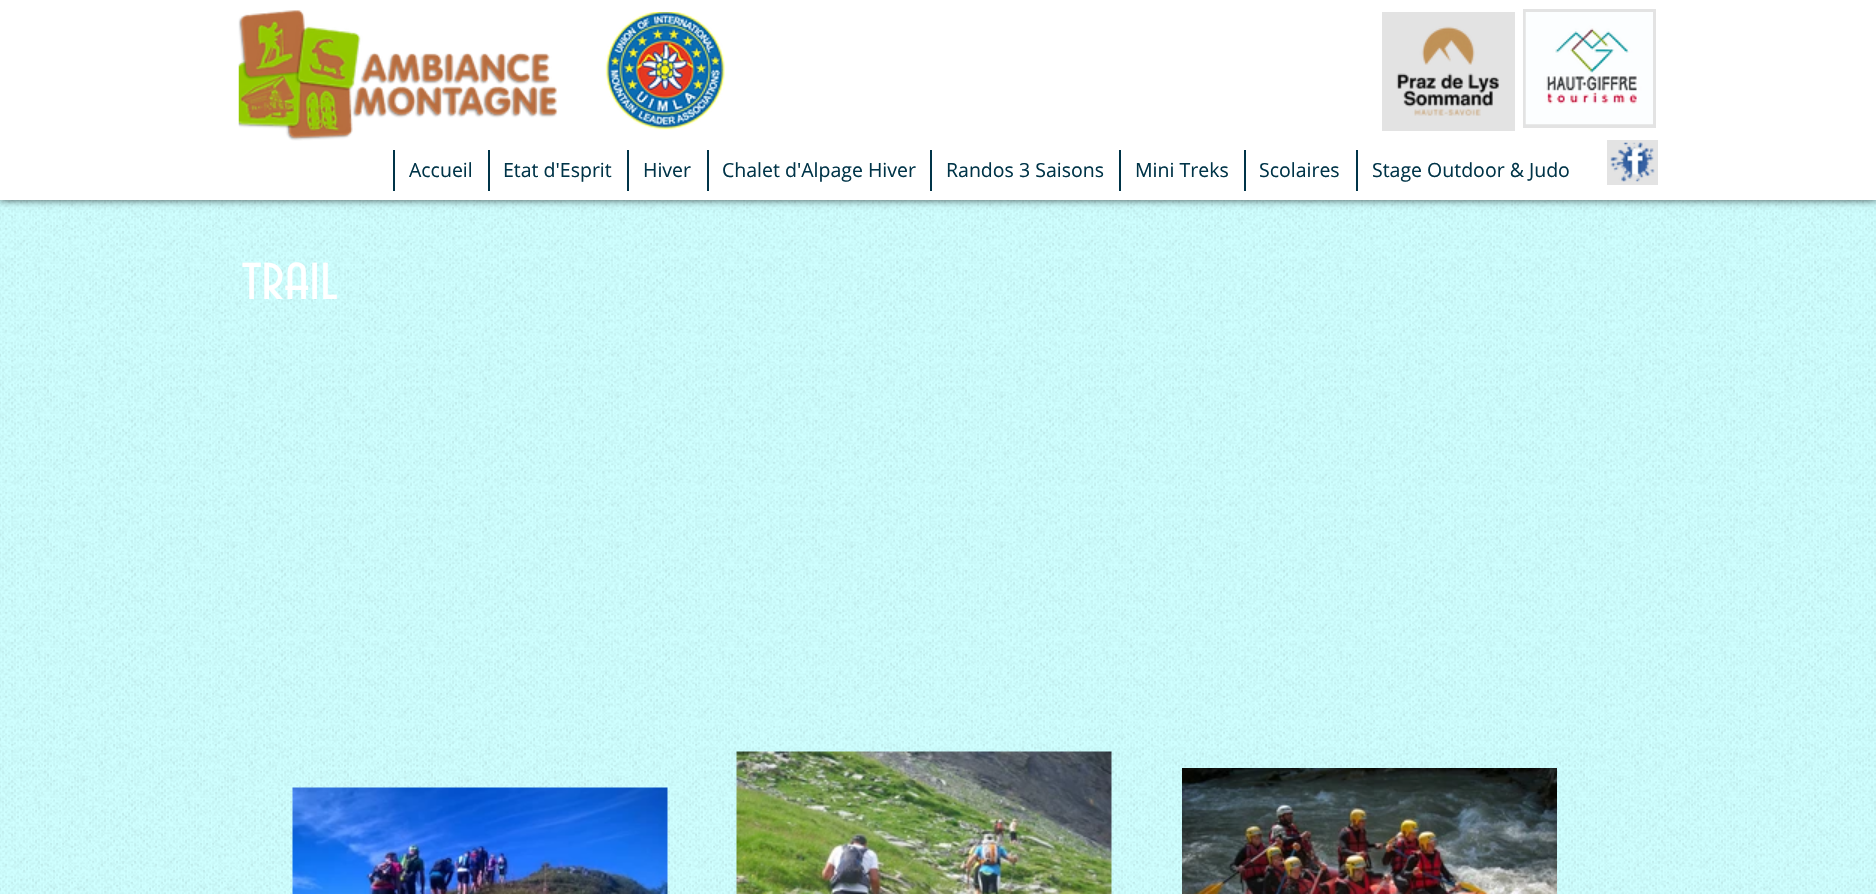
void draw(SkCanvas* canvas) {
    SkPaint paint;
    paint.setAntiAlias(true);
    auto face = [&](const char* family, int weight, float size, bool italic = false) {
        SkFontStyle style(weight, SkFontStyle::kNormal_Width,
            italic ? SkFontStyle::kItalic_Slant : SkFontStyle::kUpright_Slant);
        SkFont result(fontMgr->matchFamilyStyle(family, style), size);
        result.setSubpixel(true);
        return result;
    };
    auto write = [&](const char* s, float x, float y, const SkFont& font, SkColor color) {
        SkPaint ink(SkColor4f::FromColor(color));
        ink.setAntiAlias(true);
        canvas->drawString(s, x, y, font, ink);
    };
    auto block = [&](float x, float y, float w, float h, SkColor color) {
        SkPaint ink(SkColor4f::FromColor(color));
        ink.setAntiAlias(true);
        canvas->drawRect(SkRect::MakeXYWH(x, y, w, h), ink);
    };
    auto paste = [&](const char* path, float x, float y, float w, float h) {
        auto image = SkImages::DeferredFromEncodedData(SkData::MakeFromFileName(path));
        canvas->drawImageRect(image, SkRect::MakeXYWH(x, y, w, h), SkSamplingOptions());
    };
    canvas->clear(SkColorSetRGB(207, 255, 255));
    paste("pic9.png", 0, 200, 1876, 694);
    paint.setColor(SkColorSetARGB(179, 0, 0, 0));
    paint.setMaskFilter(SkMaskFilter::MakeBlur(kNormal_SkBlurStyle, 4));
    canvas->drawRect(SkRect::MakeXYWH(0, 0, 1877, 200), paint);
    paint.setMaskFilter(nullptr);
    block(0, 0, 1876, 200, SK_ColorWHITE);
    paste("pic1.png", 238, 10, 320, 131);
    paste("pic2.png", 605, 12, 120, 118);
    block(1382, 12, 133, 119, SkColorSetRGB(227, 227, 227));
    paste("pic3.png", 1396, 26, 104, 90);
    block(1523, 9, 133, 119, SkColorSetRGB(227, 227, 227));
    paste("pic4.png", 1525, 12, 128, 113);
    block(393, 150, 2, 41, SkColorSetRGB(0, 52, 72));
    auto kFont1 = face("Open Sans", 400, 19.5f);
    write("Accueil", 409, 177, kFont1, SkColorSetRGB(0, 52, 72));
    block(488, 150, 2, 41, SkColorSetRGB(0, 52, 72));
    write("Etat d'Esprit", 503, 177, kFont1, SkColorSetRGB(0, 52, 72));
    block(627, 150, 2, 41, SkColorSetRGB(0, 52, 72));
    write("Hiver", 643, 177, kFont1, SkColorSetRGB(0, 52, 72));
    block(707, 150, 2, 41, SkColorSetRGB(0, 52, 72));
    write("Chalet d'Alpage Hiver", 722, 177, kFont1, SkColorSetRGB(0, 52, 72));
    block(930, 150, 2, 41, SkColorSetRGB(0, 52, 72));
    write("Randos 3 Saisons", 946, 177, kFont1, SkColorSetRGB(0, 52, 72));
    block(1119, 150, 2, 41, SkColorSetRGB(0, 52, 72));
    write("Mini Treks", 1135, 177, kFont1, SkColorSetRGB(0, 52, 72));
    block(1244, 150, 2, 41, SkColorSetRGB(0, 52, 72));
    write("Scolaires", 1259, 177, kFont1, SkColorSetRGB(0, 52, 72));
    block(1356, 150, 2, 41, SkColorSetRGB(0, 52, 72));
    write("Stage Outdoor & Judo", 1372, 177, kFont1, SkColorSetRGB(0, 52, 72));
    block(1607, 140, 51, 45, SkColorSetRGB(227, 227, 227));
    paste("pic5.png", 1610, 142, 45, 40);
    auto kFont2 = face("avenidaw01", 400, 68);
    write("trail", 242, 299, kFont2, SK_ColorWHITE);
    paste("pic6.png", 292, 787, 376, 107);
    paste("pic7.png", 736, 751, 376, 143);
    paste("pic8.png", 1182, 768, 375, 126);
}
